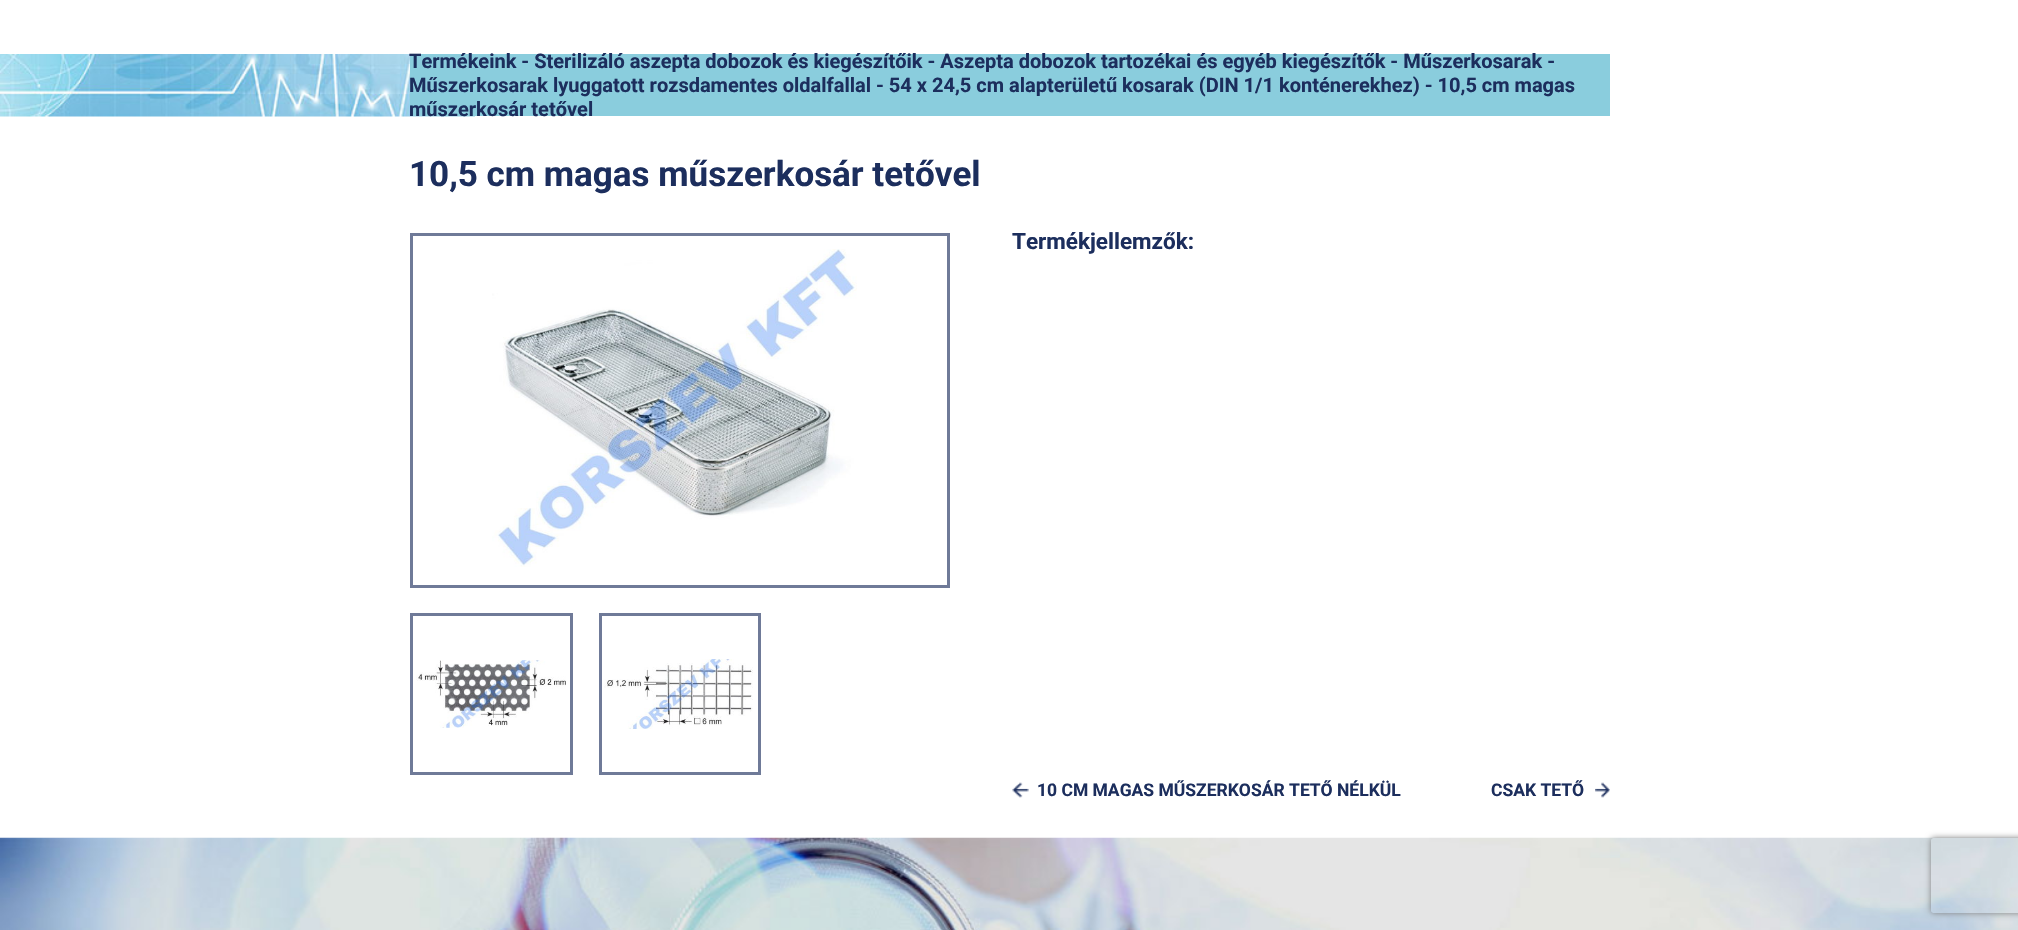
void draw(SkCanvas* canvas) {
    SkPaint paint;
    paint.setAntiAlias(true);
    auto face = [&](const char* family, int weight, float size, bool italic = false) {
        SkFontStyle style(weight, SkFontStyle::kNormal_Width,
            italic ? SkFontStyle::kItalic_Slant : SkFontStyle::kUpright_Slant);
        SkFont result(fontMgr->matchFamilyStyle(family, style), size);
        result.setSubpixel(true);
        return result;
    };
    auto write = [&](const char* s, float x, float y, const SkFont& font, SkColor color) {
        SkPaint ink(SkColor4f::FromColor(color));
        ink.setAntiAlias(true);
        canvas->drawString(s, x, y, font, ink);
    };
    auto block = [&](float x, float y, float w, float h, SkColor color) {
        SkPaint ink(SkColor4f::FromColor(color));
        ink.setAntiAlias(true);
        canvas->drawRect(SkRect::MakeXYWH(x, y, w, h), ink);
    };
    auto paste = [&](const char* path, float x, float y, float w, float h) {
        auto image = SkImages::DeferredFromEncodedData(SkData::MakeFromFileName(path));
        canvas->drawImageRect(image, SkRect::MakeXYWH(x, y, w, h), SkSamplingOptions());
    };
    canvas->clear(SK_ColorWHITE);
    paste("pic1.png", 0, 54, 475, 63);
    block(410, 54, 1200, 62, SkColorSetRGB(138, 205, 221));
    auto kFont1 = face("Roboto", 700, 20);
    write("Termékeink - Sterilizáló aszepta dobozok és kiegészítőik - Aszepta dobozok tartozékai és egyéb kiegészítők - Műszerkosarak -", 409, 68, kFont1, SkColorSetRGB(28, 46, 93));
    write("Műszerkosarak lyuggatott rozsdamentes oldalfallal - 54 x 24,5 cm alapterületű kosarak (DIN 1/1 konténerekhez) - 10,5 cm magas", 409, 92, kFont1, SkColorSetRGB(28, 46, 93));
    write("műszerkosár tetővel", 409, 116, kFont1, SkColorSetRGB(28, 46, 93));
    auto kFont2 = face("Roboto", 700, 35);
    write("10,5 cm magas műszerkosár tetővel", 409, 186, kFont2, SkColorSetRGB(28, 46, 93));
    paint.setStyle(SkPaint::kStroke_Style);
    paint.setStrokeWidth(3);
    paint.setColor(SkColorSetRGB(111, 122, 152));
    canvas->drawRect(SkRect::MakeXYWH(411.5f, 234.5f, 537, 352), paint);
    paste("pic2.png", 492, 249, 365, 318);
    canvas->drawRect(SkRect::MakeXYWH(411.5f, 614.5f, 160, 159), paint);
    paste("pic3.png", 416, 660, 150, 68);
    canvas->drawRect(SkRect::MakeXYWH(600.5f, 614.5f, 159, 159), paint);
    paste("pic4.png", 604, 659, 149, 70);
    auto kFont3 = face("Roboto", 700, 22.5f);
    write("Termékjellemzők:", 1012, 249, kFont3, SkColorSetRGB(28, 46, 93));
    paste("pic5.png", 1012, 782, 17, 16);
    auto kFont4 = face("Roboto", 700, 17.5f);
    write("10 CM MAGAS MŰSZERKOSÁR TETŐ NÉLKÜL", 1037, 796, kFont4, SkColorSetRGB(28, 46, 93));
    paste("pic6.png", 1595, 782, 15, 16);
    write("CSAK TETŐ", 1491, 796, kFont4, SkColorSetRGB(28, 46, 93));
    paste("pic7.png", 0, 837, 2018, 93);
    canvas->save();
    canvas->clipPath(SkPathBuilder(SkPathFillType::kEvenOdd).moveTo(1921, 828).lineTo(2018, 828).lineTo(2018, 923).lineTo(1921, 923).close().moveTo(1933.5f, 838).lineTo(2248.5f, 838).cubicTo(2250, 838, 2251, 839, 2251, 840.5f).lineTo(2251, 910.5f).cubicTo(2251, 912, 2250, 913, 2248.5f, 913).lineTo(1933.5f, 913).cubicTo(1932, 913, 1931, 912, 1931, 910.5f).lineTo(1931, 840.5f).cubicTo(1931, 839, 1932, 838, 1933.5f, 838).close().detach(), true);
    paint.setStyle(SkPaint::kFill_Style);
    paint.setColor(SkColorSetRGB(128, 128, 128));
    paint.setMaskFilter(SkMaskFilter::MakeBlur(kNormal_SkBlurStyle, 3));
    canvas->drawRoundRect(SkRect::MakeXYWH(1931, 838, 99, 75), 2.5f, 2.5f, paint);
    paint.setMaskFilter(nullptr);
    canvas->restore();
}
